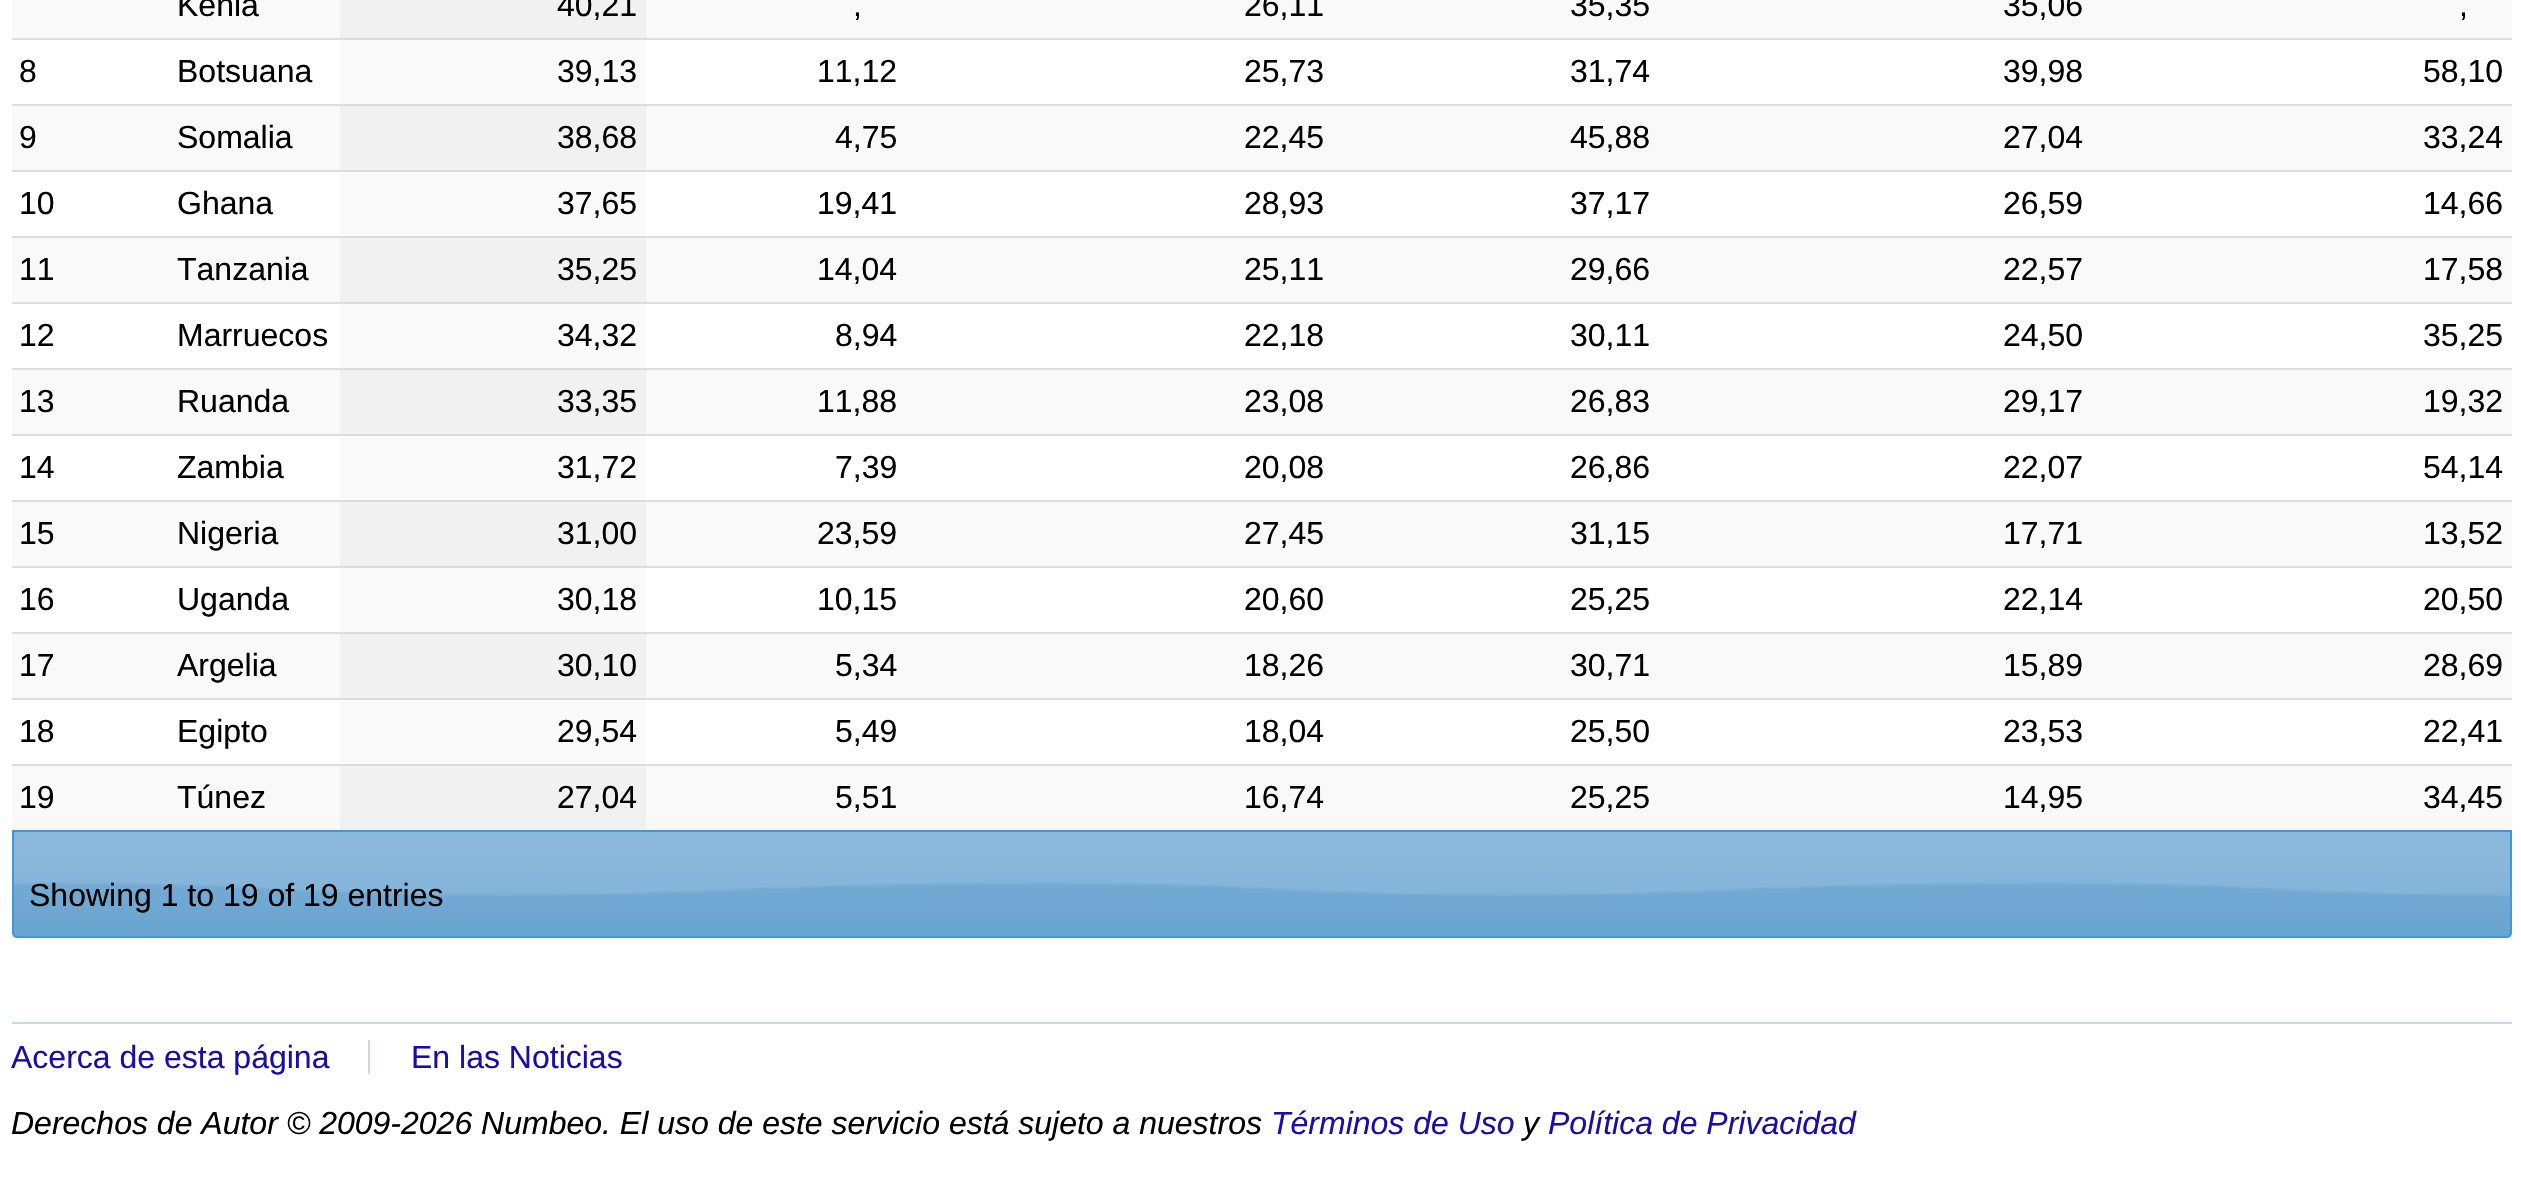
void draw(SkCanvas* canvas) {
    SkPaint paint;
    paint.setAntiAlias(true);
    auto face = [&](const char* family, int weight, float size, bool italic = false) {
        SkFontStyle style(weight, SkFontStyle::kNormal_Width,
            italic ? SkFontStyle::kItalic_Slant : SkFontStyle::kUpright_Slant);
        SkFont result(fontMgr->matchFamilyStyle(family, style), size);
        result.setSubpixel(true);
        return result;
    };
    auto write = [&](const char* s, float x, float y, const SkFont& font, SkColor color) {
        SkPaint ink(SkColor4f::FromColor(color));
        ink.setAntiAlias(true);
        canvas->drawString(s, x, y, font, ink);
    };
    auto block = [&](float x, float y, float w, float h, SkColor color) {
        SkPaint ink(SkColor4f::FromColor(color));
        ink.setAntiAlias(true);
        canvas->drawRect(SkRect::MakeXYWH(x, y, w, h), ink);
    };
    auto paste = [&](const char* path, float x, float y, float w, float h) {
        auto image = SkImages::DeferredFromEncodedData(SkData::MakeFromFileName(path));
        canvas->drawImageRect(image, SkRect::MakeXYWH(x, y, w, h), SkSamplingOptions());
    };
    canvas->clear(SK_ColorWHITE);
    block(12, 0, 2500, 38, SkColorSetRGB(249, 249, 249));
    auto kFont1 = face("Liberation Sans", 400, 32);
    write("Kenia", 177, 16, kFont1, SK_ColorBLACK);
    block(340, 0, 306, 38, SkColorSetRGB(241, 241, 241));
    write("40,21", 557, 16, kFont1, SK_ColorBLACK);
    write(",", 853, 16, kFont1, SK_ColorBLACK);
    write("26,11", 1244, 16, kFont1, SK_ColorBLACK);
    write("35,35", 1570, 16, kFont1, SK_ColorBLACK);
    write("35,06", 2003, 16, kFont1, SK_ColorBLACK);
    write(",", 2459, 16, kFont1, SK_ColorBLACK);
    block(12, 38, 2500, 2, SkColorSetRGB(221, 221, 221));
    write("8", 19, 82, kFont1, SK_ColorBLACK);
    write("Botsuana", 177, 82, kFont1, SK_ColorBLACK);
    block(340, 40, 306, 64, SkColorSetRGB(250, 250, 250));
    write("39,13", 557, 82, kFont1, SK_ColorBLACK);
    write("11,12", 817, 82, kFont1, SK_ColorBLACK);
    write("25,73", 1244, 82, kFont1, SK_ColorBLACK);
    write("31,74", 1570, 82, kFont1, SK_ColorBLACK);
    write("39,98", 2003, 82, kFont1, SK_ColorBLACK);
    write("58,10", 2423, 82, kFont1, SK_ColorBLACK);
    block(12, 106, 2500, 64, SkColorSetRGB(249, 249, 249));
    block(12, 104, 2500, 2, SkColorSetRGB(221, 221, 221));
    write("9", 19, 148, kFont1, SK_ColorBLACK);
    write("Somalia", 177, 148, kFont1, SK_ColorBLACK);
    block(340, 106, 306, 64, SkColorSetRGB(241, 241, 241));
    write("38,68", 557, 148, kFont1, SK_ColorBLACK);
    write("4,75", 835, 148, kFont1, SK_ColorBLACK);
    write("22,45", 1244, 148, kFont1, SK_ColorBLACK);
    write("45,88", 1570, 148, kFont1, SK_ColorBLACK);
    write("27,04", 2003, 148, kFont1, SK_ColorBLACK);
    write("33,24", 2423, 148, kFont1, SK_ColorBLACK);
    block(12, 170, 2500, 2, SkColorSetRGB(221, 221, 221));
    write("10", 19, 214, kFont1, SK_ColorBLACK);
    write("Ghana", 177, 214, kFont1, SK_ColorBLACK);
    block(340, 172, 306, 64, SkColorSetRGB(250, 250, 250));
    write("37,65", 557, 214, kFont1, SK_ColorBLACK);
    write("19,41", 817, 214, kFont1, SK_ColorBLACK);
    write("28,93", 1244, 214, kFont1, SK_ColorBLACK);
    write("37,17", 1570, 214, kFont1, SK_ColorBLACK);
    write("26,59", 2003, 214, kFont1, SK_ColorBLACK);
    write("14,66", 2423, 214, kFont1, SK_ColorBLACK);
    block(12, 238, 2500, 64, SkColorSetRGB(249, 249, 249));
    block(12, 236, 2500, 2, SkColorSetRGB(221, 221, 221));
    write("11", 19, 280, kFont1, SK_ColorBLACK);
    write("Tanzania", 177, 280, kFont1, SK_ColorBLACK);
    block(340, 238, 306, 64, SkColorSetRGB(241, 241, 241));
    write("35,25", 557, 280, kFont1, SK_ColorBLACK);
    write("14,04", 817, 280, kFont1, SK_ColorBLACK);
    write("25,11", 1244, 280, kFont1, SK_ColorBLACK);
    write("29,66", 1570, 280, kFont1, SK_ColorBLACK);
    write("22,57", 2003, 280, kFont1, SK_ColorBLACK);
    write("17,58", 2423, 280, kFont1, SK_ColorBLACK);
    block(12, 302, 2500, 2, SkColorSetRGB(221, 221, 221));
    write("12", 19, 346, kFont1, SK_ColorBLACK);
    write("Marruecos", 177, 346, kFont1, SK_ColorBLACK);
    block(340, 304, 306, 64, SkColorSetRGB(250, 250, 250));
    write("34,32", 557, 346, kFont1, SK_ColorBLACK);
    write("8,94", 835, 346, kFont1, SK_ColorBLACK);
    write("22,18", 1244, 346, kFont1, SK_ColorBLACK);
    write("30,11", 1570, 346, kFont1, SK_ColorBLACK);
    write("24,50", 2003, 346, kFont1, SK_ColorBLACK);
    write("35,25", 2423, 346, kFont1, SK_ColorBLACK);
    block(12, 370, 2500, 64, SkColorSetRGB(249, 249, 249));
    block(12, 368, 2500, 2, SkColorSetRGB(221, 221, 221));
    write("13", 19, 412, kFont1, SK_ColorBLACK);
    write("Ruanda", 177, 412, kFont1, SK_ColorBLACK);
    block(340, 370, 306, 64, SkColorSetRGB(241, 241, 241));
    write("33,35", 557, 412, kFont1, SK_ColorBLACK);
    write("11,88", 817, 412, kFont1, SK_ColorBLACK);
    write("23,08", 1244, 412, kFont1, SK_ColorBLACK);
    write("26,83", 1570, 412, kFont1, SK_ColorBLACK);
    write("29,17", 2003, 412, kFont1, SK_ColorBLACK);
    write("19,32", 2423, 412, kFont1, SK_ColorBLACK);
    block(12, 434, 2500, 2, SkColorSetRGB(221, 221, 221));
    write("14", 19, 478, kFont1, SK_ColorBLACK);
    write("Zambia", 177, 478, kFont1, SK_ColorBLACK);
    block(340, 436, 306, 64, SkColorSetRGB(250, 250, 250));
    write("31,72", 557, 478, kFont1, SK_ColorBLACK);
    write("7,39", 835, 478, kFont1, SK_ColorBLACK);
    write("20,08", 1244, 478, kFont1, SK_ColorBLACK);
    write("26,86", 1570, 478, kFont1, SK_ColorBLACK);
    write("22,07", 2003, 478, kFont1, SK_ColorBLACK);
    write("54,14", 2423, 478, kFont1, SK_ColorBLACK);
    block(12, 502, 2500, 64, SkColorSetRGB(249, 249, 249));
    block(12, 500, 2500, 2, SkColorSetRGB(221, 221, 221));
    write("15", 19, 544, kFont1, SK_ColorBLACK);
    write("Nigeria", 177, 544, kFont1, SK_ColorBLACK);
    block(340, 502, 306, 64, SkColorSetRGB(241, 241, 241));
    write("31,00", 557, 544, kFont1, SK_ColorBLACK);
    write("23,59", 817, 544, kFont1, SK_ColorBLACK);
    write("27,45", 1244, 544, kFont1, SK_ColorBLACK);
    write("31,15", 1570, 544, kFont1, SK_ColorBLACK);
    write("17,71", 2003, 544, kFont1, SK_ColorBLACK);
    write("13,52", 2423, 544, kFont1, SK_ColorBLACK);
    block(12, 566, 2500, 2, SkColorSetRGB(221, 221, 221));
    write("16", 19, 610, kFont1, SK_ColorBLACK);
    write("Uganda", 177, 610, kFont1, SK_ColorBLACK);
    block(340, 568, 306, 64, SkColorSetRGB(250, 250, 250));
    write("30,18", 557, 610, kFont1, SK_ColorBLACK);
    write("10,15", 817, 610, kFont1, SK_ColorBLACK);
    write("20,60", 1244, 610, kFont1, SK_ColorBLACK);
    write("25,25", 1570, 610, kFont1, SK_ColorBLACK);
    write("22,14", 2003, 610, kFont1, SK_ColorBLACK);
    write("20,50", 2423, 610, kFont1, SK_ColorBLACK);
    block(12, 634, 2500, 64, SkColorSetRGB(249, 249, 249));
    block(12, 632, 2500, 2, SkColorSetRGB(221, 221, 221));
    write("17", 19, 676, kFont1, SK_ColorBLACK);
    write("Argelia", 177, 676, kFont1, SK_ColorBLACK);
    block(340, 634, 306, 64, SkColorSetRGB(241, 241, 241));
    write("30,10", 557, 676, kFont1, SK_ColorBLACK);
    write("5,34", 835, 676, kFont1, SK_ColorBLACK);
    write("18,26", 1244, 676, kFont1, SK_ColorBLACK);
    write("30,71", 1570, 676, kFont1, SK_ColorBLACK);
    write("15,89", 2003, 676, kFont1, SK_ColorBLACK);
    write("28,69", 2423, 676, kFont1, SK_ColorBLACK);
    block(12, 698, 2500, 2, SkColorSetRGB(221, 221, 221));
    write("18", 19, 742, kFont1, SK_ColorBLACK);
    write("Egipto", 177, 742, kFont1, SK_ColorBLACK);
    block(340, 700, 306, 64, SkColorSetRGB(250, 250, 250));
    write("29,54", 557, 742, kFont1, SK_ColorBLACK);
    write("5,49", 835, 742, kFont1, SK_ColorBLACK);
    write("18,04", 1244, 742, kFont1, SK_ColorBLACK);
    write("25,50", 1570, 742, kFont1, SK_ColorBLACK);
    write("23,53", 2003, 742, kFont1, SK_ColorBLACK);
    write("22,41", 2423, 742, kFont1, SK_ColorBLACK);
    block(12, 766, 2500, 64, SkColorSetRGB(249, 249, 249));
    block(12, 764, 2500, 2, SkColorSetRGB(221, 221, 221));
    write("19", 19, 808, kFont1, SK_ColorBLACK);
    write("Túnez", 177, 808, kFont1, SK_ColorBLACK);
    block(340, 766, 306, 64, SkColorSetRGB(241, 241, 241));
    write("27,04", 557, 808, kFont1, SK_ColorBLACK);
    write("5,51", 835, 808, kFont1, SK_ColorBLACK);
    write("16,74", 1244, 808, kFont1, SK_ColorBLACK);
    write("25,25", 1570, 808, kFont1, SK_ColorBLACK);
    write("14,95", 2003, 808, kFont1, SK_ColorBLACK);
    write("34,45", 2423, 808, kFont1, SK_ColorBLACK);
    paste("pic1.png", 12, 832, 2500, 106);
    paint.setStyle(SkPaint::kStroke_Style);
    paint.setStrokeWidth(2);
    paint.setColor(SkColorSetRGB(66, 151, 215));
    canvas->drawPath(SkPathBuilder().moveTo(13, 831).lineTo(2511, 831).lineTo(2511, 932).cubicTo(2511, 935, 2509, 937, 2506, 937).lineTo(18, 937).cubicTo(15, 937, 13, 935, 13, 932).close().detach(), paint);
    write("Showing 1 to 19 of 19 entries", 29, 906, kFont1, SK_ColorBLACK);
    block(12, 1022, 2500, 2, SkColorSetRGB(197, 219, 236));
    write("Acerca de esta página", 11, 1068, kFont1, SkColorSetRGB(26, 13, 171));
    block(368, 1040, 2, 34, SkColorSetRGB(197, 219, 236));
    write("En las Noticias", 411, 1068, kFont1, SkColorSetRGB(26, 13, 171));
    auto kFont2 = face("Liberation Sans", 400, 32, true);
    write("Derechos de Autor © 2009-2026 Numbeo. El uso de este servicio está sujeto a nuestros", 11, 1134, kFont2, SK_ColorBLACK);
    write("Términos de Uso", 1271, 1134, kFont2, SkColorSetRGB(26, 13, 171));
    write("y", 1523, 1134, kFont2, SK_ColorBLACK);
    write("Política de Privacidad", 1548, 1134, kFont2, SkColorSetRGB(26, 13, 171));
}
